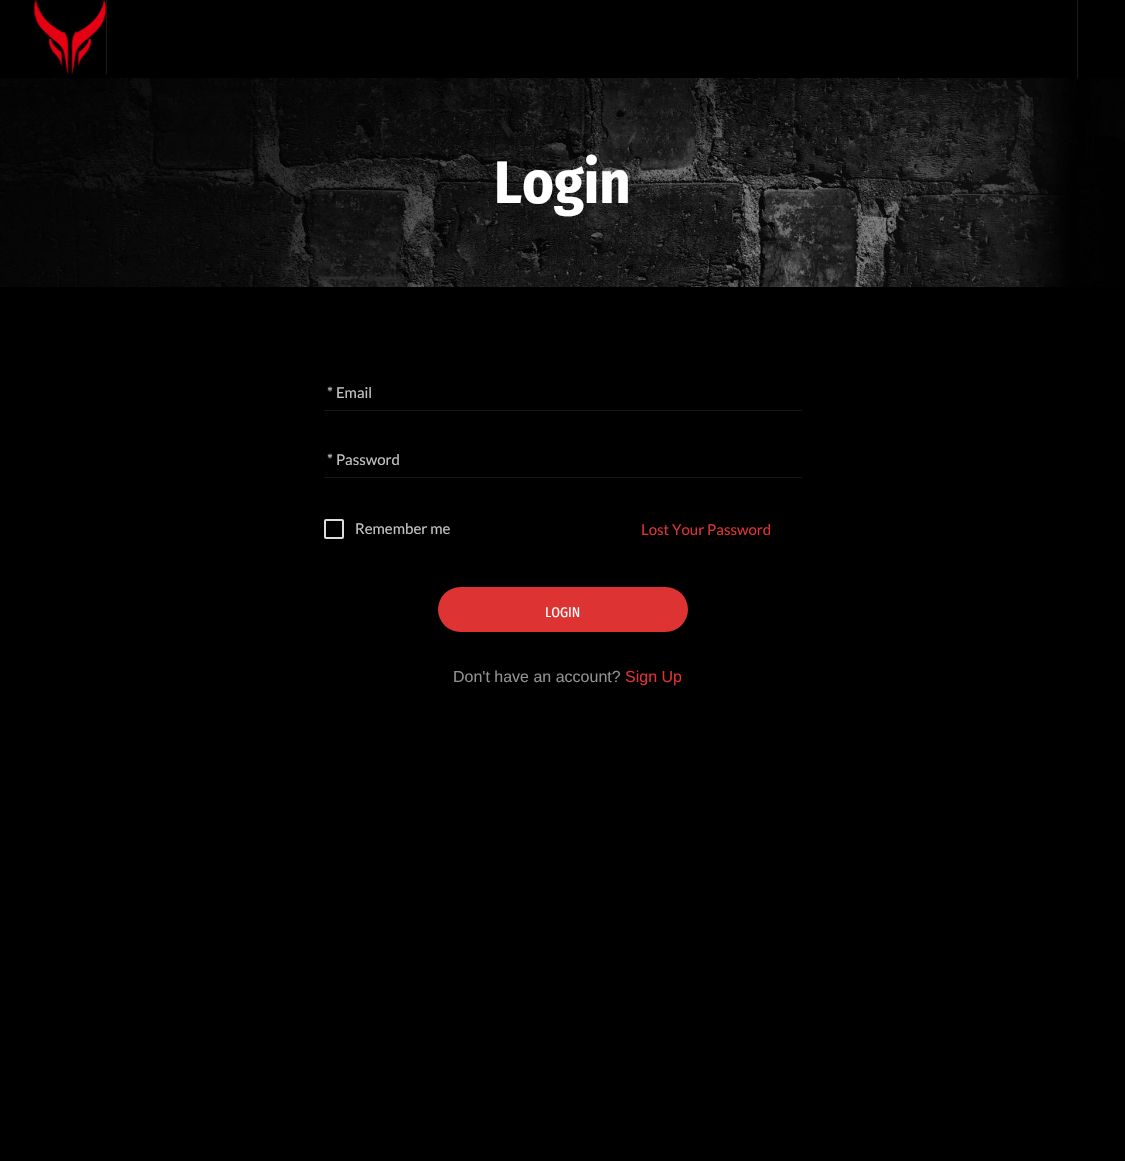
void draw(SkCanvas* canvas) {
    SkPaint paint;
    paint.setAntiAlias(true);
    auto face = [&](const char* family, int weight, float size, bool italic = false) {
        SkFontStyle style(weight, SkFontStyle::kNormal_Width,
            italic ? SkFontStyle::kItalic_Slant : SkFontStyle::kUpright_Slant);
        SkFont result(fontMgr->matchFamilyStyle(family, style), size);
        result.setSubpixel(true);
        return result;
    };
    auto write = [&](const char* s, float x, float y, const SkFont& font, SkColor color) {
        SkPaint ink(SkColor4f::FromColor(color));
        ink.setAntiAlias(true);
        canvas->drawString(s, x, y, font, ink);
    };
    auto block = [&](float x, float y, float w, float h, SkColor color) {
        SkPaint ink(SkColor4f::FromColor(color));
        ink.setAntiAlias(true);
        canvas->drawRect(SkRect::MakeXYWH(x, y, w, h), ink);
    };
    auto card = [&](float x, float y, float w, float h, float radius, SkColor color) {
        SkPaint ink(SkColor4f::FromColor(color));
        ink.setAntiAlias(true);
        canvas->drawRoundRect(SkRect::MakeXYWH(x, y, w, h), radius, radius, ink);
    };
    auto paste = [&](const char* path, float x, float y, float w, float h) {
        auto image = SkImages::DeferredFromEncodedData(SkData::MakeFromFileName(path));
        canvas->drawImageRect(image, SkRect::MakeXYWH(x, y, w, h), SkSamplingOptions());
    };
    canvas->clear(SK_ColorBLACK);
    block(106, 0, 1, 74, SkColorSetRGB(26, 26, 26));
    paste("pic1.png", 33, 0, 73, 74);
    block(1077, 0, 1, 78, SkColorSetRGB(26, 26, 26));
    paste("pic2.png", 0, 78, 1125, 209);
    {
        const SkColor colors[] = {SkColorSetARGB(89, 0, 0, 0), SkColorSetARGB(0, 0, 0, 0)};
        const float stops[] = {0, 1};
        const SkPoint ends[] = {{563, 78}, {563, 158}};
        paint.setShader(SkGradientShader::MakeLinear(ends, colors, stops, 2, SkTileMode::kClamp));
        paint.setAlpha(255);
    }
    canvas->drawRect(SkRect::MakeXYWH(0, 78, 1057, 72), paint);
    auto kFont1 = face("Fira Sans Condensed", 700, 60);
    write("Login", 494, 203, kFont1, SK_ColorWHITE);
    auto kFont2 = face("Lato", 400, 15);
    write("* Email", 327, 398, kFont2, SkColorSetRGB(196, 196, 197));
    block(324, 410, 478, 1, SkColorSetRGB(23, 23, 23));
    write("* Password", 327, 465, kFont2, SkColorSetRGB(196, 196, 197));
    block(324, 477, 478, 1, SkColorSetRGB(23, 23, 23));
    paint.setStyle(SkPaint::kStroke_Style);
    paint.setStrokeWidth(2);
    paint.setShader(nullptr);
    paint.setColor(SkColorSetRGB(221, 221, 221));
    canvas->drawRoundRect(SkRect::MakeXYWH(325, 520, 18, 18), 1, 1, paint);
    write("Remember me", 355, 534, kFont2, SkColorSetRGB(196, 196, 197));
    card(438, 587, 250, 45, 22.5f, SkColorSetRGB(221, 51, 51));
    auto kFont3 = face("Fira Sans Condensed", 400, 14);
    write("LOGIN", 545, 617, kFont3, SK_ColorWHITE);
    write("Lost Your Password", 641, 535, kFont2, SkColorSetRGB(221, 51, 51));
    auto kFont4 = face("Liberation Sans", 400, 16);
    write("Don't have an account?", 453, 682, kFont4, SkColorSetRGB(145, 145, 145));
    write("Sign Up", 625, 682, kFont4, SkColorSetRGB(221, 51, 51));
}
